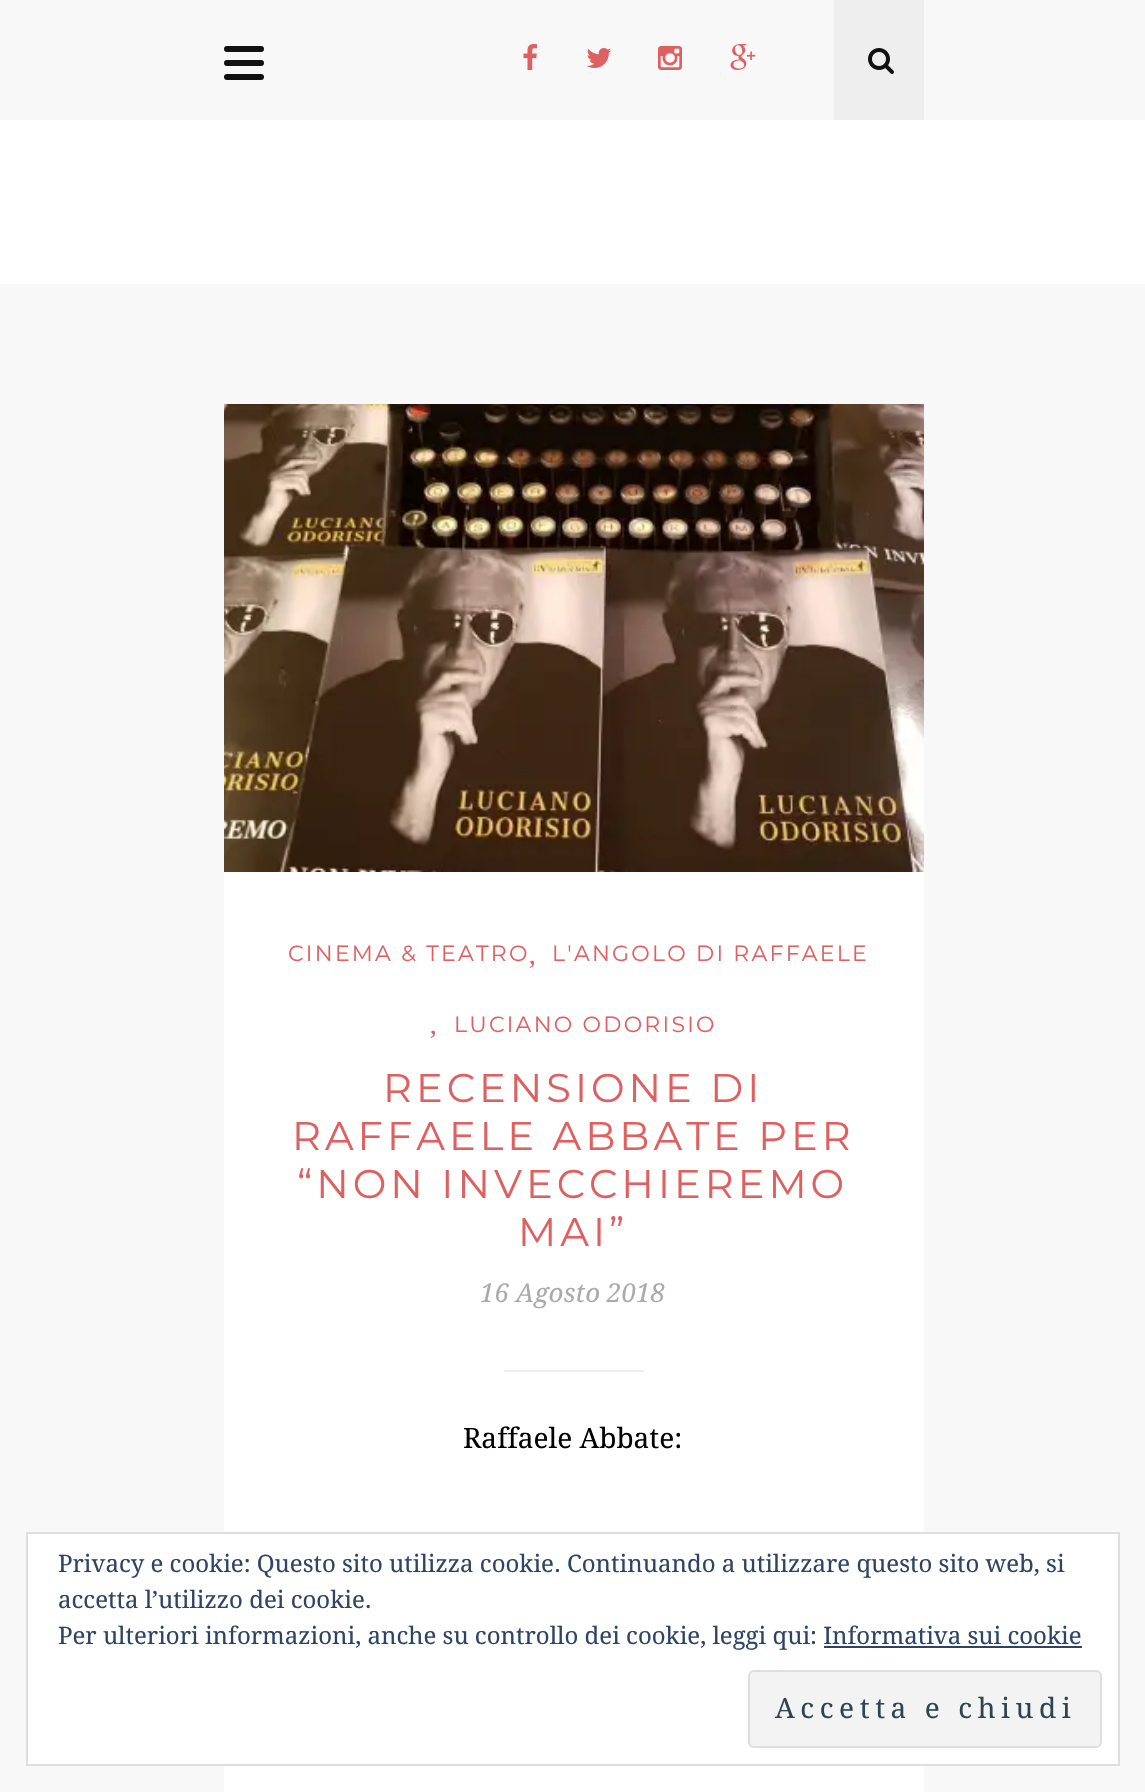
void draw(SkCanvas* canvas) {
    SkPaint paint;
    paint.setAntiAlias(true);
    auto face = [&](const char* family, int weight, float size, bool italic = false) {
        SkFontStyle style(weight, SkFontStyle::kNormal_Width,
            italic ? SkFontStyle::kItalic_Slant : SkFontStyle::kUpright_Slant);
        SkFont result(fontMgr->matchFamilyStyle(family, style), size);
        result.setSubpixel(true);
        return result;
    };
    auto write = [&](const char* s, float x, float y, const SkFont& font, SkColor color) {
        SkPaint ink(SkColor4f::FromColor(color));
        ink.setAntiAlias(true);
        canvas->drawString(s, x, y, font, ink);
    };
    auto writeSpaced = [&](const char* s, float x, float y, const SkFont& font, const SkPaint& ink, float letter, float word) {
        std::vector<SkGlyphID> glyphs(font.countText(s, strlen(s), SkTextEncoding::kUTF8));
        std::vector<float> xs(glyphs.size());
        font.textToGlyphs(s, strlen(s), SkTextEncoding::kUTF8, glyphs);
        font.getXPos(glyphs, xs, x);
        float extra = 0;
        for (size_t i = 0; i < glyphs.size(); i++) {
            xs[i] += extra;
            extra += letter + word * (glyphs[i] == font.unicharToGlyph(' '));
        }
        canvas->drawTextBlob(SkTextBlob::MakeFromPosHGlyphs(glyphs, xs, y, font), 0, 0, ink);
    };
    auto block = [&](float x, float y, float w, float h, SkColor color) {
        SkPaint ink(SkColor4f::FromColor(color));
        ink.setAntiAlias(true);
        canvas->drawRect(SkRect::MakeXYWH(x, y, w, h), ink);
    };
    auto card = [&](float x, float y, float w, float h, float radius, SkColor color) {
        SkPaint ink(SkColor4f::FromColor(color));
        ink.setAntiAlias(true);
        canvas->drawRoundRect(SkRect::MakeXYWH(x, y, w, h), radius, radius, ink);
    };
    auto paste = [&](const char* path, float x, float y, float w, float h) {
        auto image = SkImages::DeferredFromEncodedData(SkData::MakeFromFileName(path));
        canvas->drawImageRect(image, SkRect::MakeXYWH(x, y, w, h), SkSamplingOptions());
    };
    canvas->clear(SK_ColorWHITE);
    block(0, 0, 1145, 120, SkColorSetRGB(248, 248, 248));
    card(224, 60, 40, 6, 3, SkColorSetRGB(17, 17, 17));
    card(224, 46, 40, 6, 3, SkColorSetRGB(17, 17, 17));
    card(224, 74, 40, 6, 3, SkColorSetRGB(17, 17, 17));
    paste("pic1.png", 523, 44, 14, 26);
    paste("pic2.png", 586, 48, 26, 20);
    paste("pic3.png", 658, 46, 24, 24);
    paste("pic4.png", 730, 44, 26, 26);
    block(834, 0, 90, 120, SkColorSetRGB(238, 238, 238));
    paste("pic5.png", 868, 48, 26, 26);
    block(0, 284, 1145, 1508, SkColorSetRGB(248, 248, 248));
    block(224, 872, 700, 920, SK_ColorWHITE);
    paste("pic6.png", 224, 404, 700, 468);
    auto kFont1 = face("Montserrat", 400, 22);
    paint.setColor(SkColorSetRGB(223, 96, 96));
    writeSpaced("CINEMA & TEATRO", 288, 961, kFont1, paint, 2.25f, 0);
    writeSpaced("L'ANGOLO DI RAFFAELE", 552, 961, kFont1, paint, 2.25f, 0);
    auto kFont2 = face("Droid Serif", 400, 26);
    write(",", 529, 964, kFont2, SkColorSetRGB(223, 96, 96));
    writeSpaced("LUCIANO ODORISIO", 454, 1032, kFont1, paint, 2.25f, 0);
    write(",", 430, 1034, kFont2, SkColorSetRGB(223, 96, 96));
    auto kFont3 = face("Montserrat", 400, 40);
    writeSpaced("RECENSIONE DI", 383, 1102, kFont3, paint, 4, 0);
    writeSpaced("RAFFAELE ABBATE PER", 292, 1150, kFont3, paint, 4, 0);
    writeSpaced("“NON INVECCHIEREMO", 297, 1198, kFont3, paint, 4, 0);
    writeSpaced("MAI”", 518, 1246, kFont3, paint, 4, 0);
    auto kFont4 = face("Droid Serif", 400, 26, true);
    write("16 Agosto 2018", 480, 1302, kFont4, SkColorSetRGB(170, 170, 170));
    block(504, 1370, 140, 2, SkColorSetRGB(238, 238, 238));
    auto kFont5 = face("Droid Serif", 400, 28);
    write("Raffaele Abbate:", 463, 1448, kFont5, SK_ColorBLACK);
    paint.setColor(SK_ColorWHITE);
    canvas->drawRect(SkRect::MakeXYWH(27, 1533, 1092, 232), paint);
    paint.setStyle(SkPaint::kStroke_Style);
    paint.setStrokeWidth(2);
    paint.setColor(SkColorSetRGB(222, 222, 222));
    canvas->drawRect(SkRect::MakeXYWH(27, 1533, 1092, 232), paint);
    auto kFont6 = face("Droid Serif", 400, 24);
    write("Privacy e cookie: Questo sito utilizza cookie. Continuando a utilizzare questo sito web, si", 58, 1572, kFont6, SkColorSetRGB(46, 68, 103));
    write("accetta l’utilizzo dei cookie.", 58, 1608, kFont6, SkColorSetRGB(46, 68, 103));
    write("Per ulteriori informazioni, anche su controllo dei cookie, leggi qui: Informativa sui cookie", 58, 1644, kFont6, SkColorSetRGB(46, 68, 103));
    block(824, 1646, 258, 2, SkColorSetRGB(46, 68, 103));
    paint.setStyle(SkPaint::kFill_Style);
    paint.setColor(SkColorSetRGB(243, 243, 243));
    canvas->drawRoundRect(SkRect::MakeXYWH(749, 1671, 352, 76), 5, 5, paint);
    paint.setStyle(SkPaint::kStroke_Style);
    paint.setColor(SkColorSetRGB(222, 222, 222));
    canvas->drawRoundRect(SkRect::MakeXYWH(749, 1671, 352, 76), 5, 5, paint);
    paint.setStyle(SkPaint::kFill_Style);
    paint.setColor(SkColorSetRGB(46, 68, 83));
    writeSpaced("Accetta e chiudi", 775, 1718, kFont5, paint, 5.6f, 0);
}
